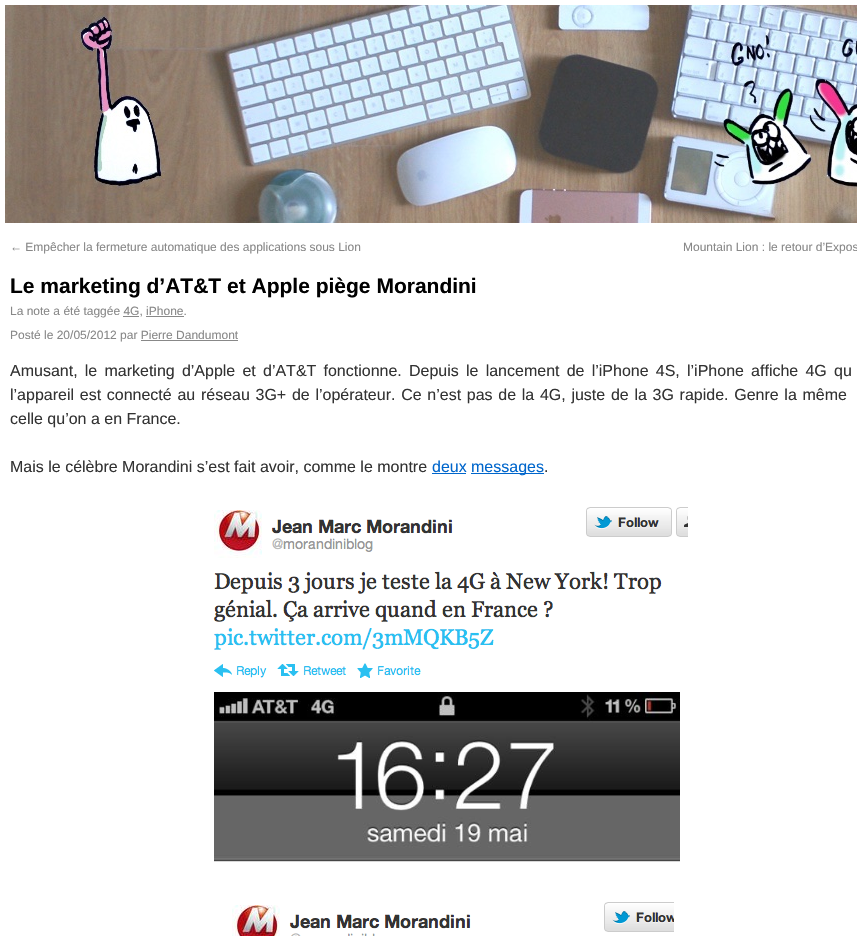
void draw(SkCanvas* canvas) {
    SkPaint paint;
    paint.setAntiAlias(true);
    auto face = [&](const char* family, int weight, float size, bool italic = false) {
        SkFontStyle style(weight, SkFontStyle::kNormal_Width,
            italic ? SkFontStyle::kItalic_Slant : SkFontStyle::kUpright_Slant);
        SkFont result(fontMgr->matchFamilyStyle(family, style), size);
        result.setSubpixel(true);
        return result;
    };
    auto write = [&](const char* s, float x, float y, const SkFont& font, SkColor color) {
        SkPaint ink(SkColor4f::FromColor(color));
        ink.setAntiAlias(true);
        canvas->drawString(s, x, y, font, ink);
    };
    auto writeSpaced = [&](const char* s, float x, float y, const SkFont& font, const SkPaint& ink, float letter, float word) {
        std::vector<SkGlyphID> glyphs(font.countText(s, strlen(s), SkTextEncoding::kUTF8));
        std::vector<float> xs(glyphs.size());
        font.textToGlyphs(s, strlen(s), SkTextEncoding::kUTF8, glyphs);
        font.getXPos(glyphs, xs, x);
        float extra = 0;
        for (size_t i = 0; i < glyphs.size(); i++) {
            xs[i] += extra;
            extra += letter + word * (glyphs[i] == font.unicharToGlyph(' '));
        }
        canvas->drawTextBlob(SkTextBlob::MakeFromPosHGlyphs(glyphs, xs, y, font), 0, 0, ink);
    };
    auto block = [&](float x, float y, float w, float h, SkColor color) {
        SkPaint ink(SkColor4f::FromColor(color));
        ink.setAntiAlias(true);
        canvas->drawRect(SkRect::MakeXYWH(x, y, w, h), ink);
    };
    auto paste = [&](const char* path, float x, float y, float w, float h) {
        auto image = SkImages::DeferredFromEncodedData(SkData::MakeFromFileName(path));
        canvas->drawImageRect(image, SkRect::MakeXYWH(x, y, w, h), SkSamplingOptions());
    };
    canvas->clear(SK_ColorWHITE);
    paste("pic1.png", 5, 5, 852, 218);
    auto kFont1 = face("Liberation Sans", 400, 12);
    write("← Empêcher la fermeture automatique des applications sous Lion", 10, 251, kFont1, SkColorSetRGB(136, 136, 136));
    write("Mountain Lion : le retour d’Expos", 683, 251, kFont1, SkColorSetRGB(136, 136, 136));
    auto kFont2 = face("Liberation Sans", 700, 21);
    write("Le marketing d’AT&T et Apple piège Morandini", 10, 293, kFont2, SK_ColorBLACK);
    write("La note a été taggée 4G, iPhone.", 10, 315, kFont1, SkColorSetRGB(136, 136, 136));
    block(123, 316, 16, 1, SkColorSetRGB(136, 136, 136));
    block(146, 316, 38, 1, SkColorSetRGB(136, 136, 136));
    write("Posté le 20/05/2012 par Pierre Dandumont", 10, 339, kFont1, SkColorSetRGB(136, 136, 136));
    block(141, 340, 97, 1, SkColorSetRGB(136, 136, 136));
    auto kFont3 = face("Liberation Sans", 400, 16);
    paint.setColor(SkColorSetRGB(51, 51, 51));
    writeSpaced("Amusant, le marketing d’Apple et d’AT&T fonctionne. Depuis le lancement de l’iPhone 4S, l’iPhone affiche 4G qu", 10, 376, kFont3, paint, 0, 2.75f);
    writeSpaced("l’appareil est connecté au réseau 3G+ de l’opérateur. Ce n’est pas de la 4G, juste de la 3G rapide. Genre la même", 10, 400, kFont3, paint, 0, 1.25f);
    write("celle qu’on a en France.", 10, 424, kFont3, SkColorSetRGB(51, 51, 51));
    write("Mais le célèbre Morandini s’est fait avoir, comme le montre", 10, 472, kFont3, SkColorSetRGB(51, 51, 51));
    write("deux", 432, 472, kFont3, SkColorSetRGB(0, 102, 204));
    block(432, 473, 34, 1, SkColorSetRGB(0, 102, 204));
    block(471, 473, 73, 1, SkColorSetRGB(0, 102, 204));
    write("messages", 471, 472, kFont3, SkColorSetRGB(0, 102, 204));
    write(".", 544, 472, kFont3, SkColorSetRGB(51, 51, 51));
    paste("pic2.png", 213, 507, 475, 355);
    paste("pic3.png", 232, 902, 442, 34);
}
